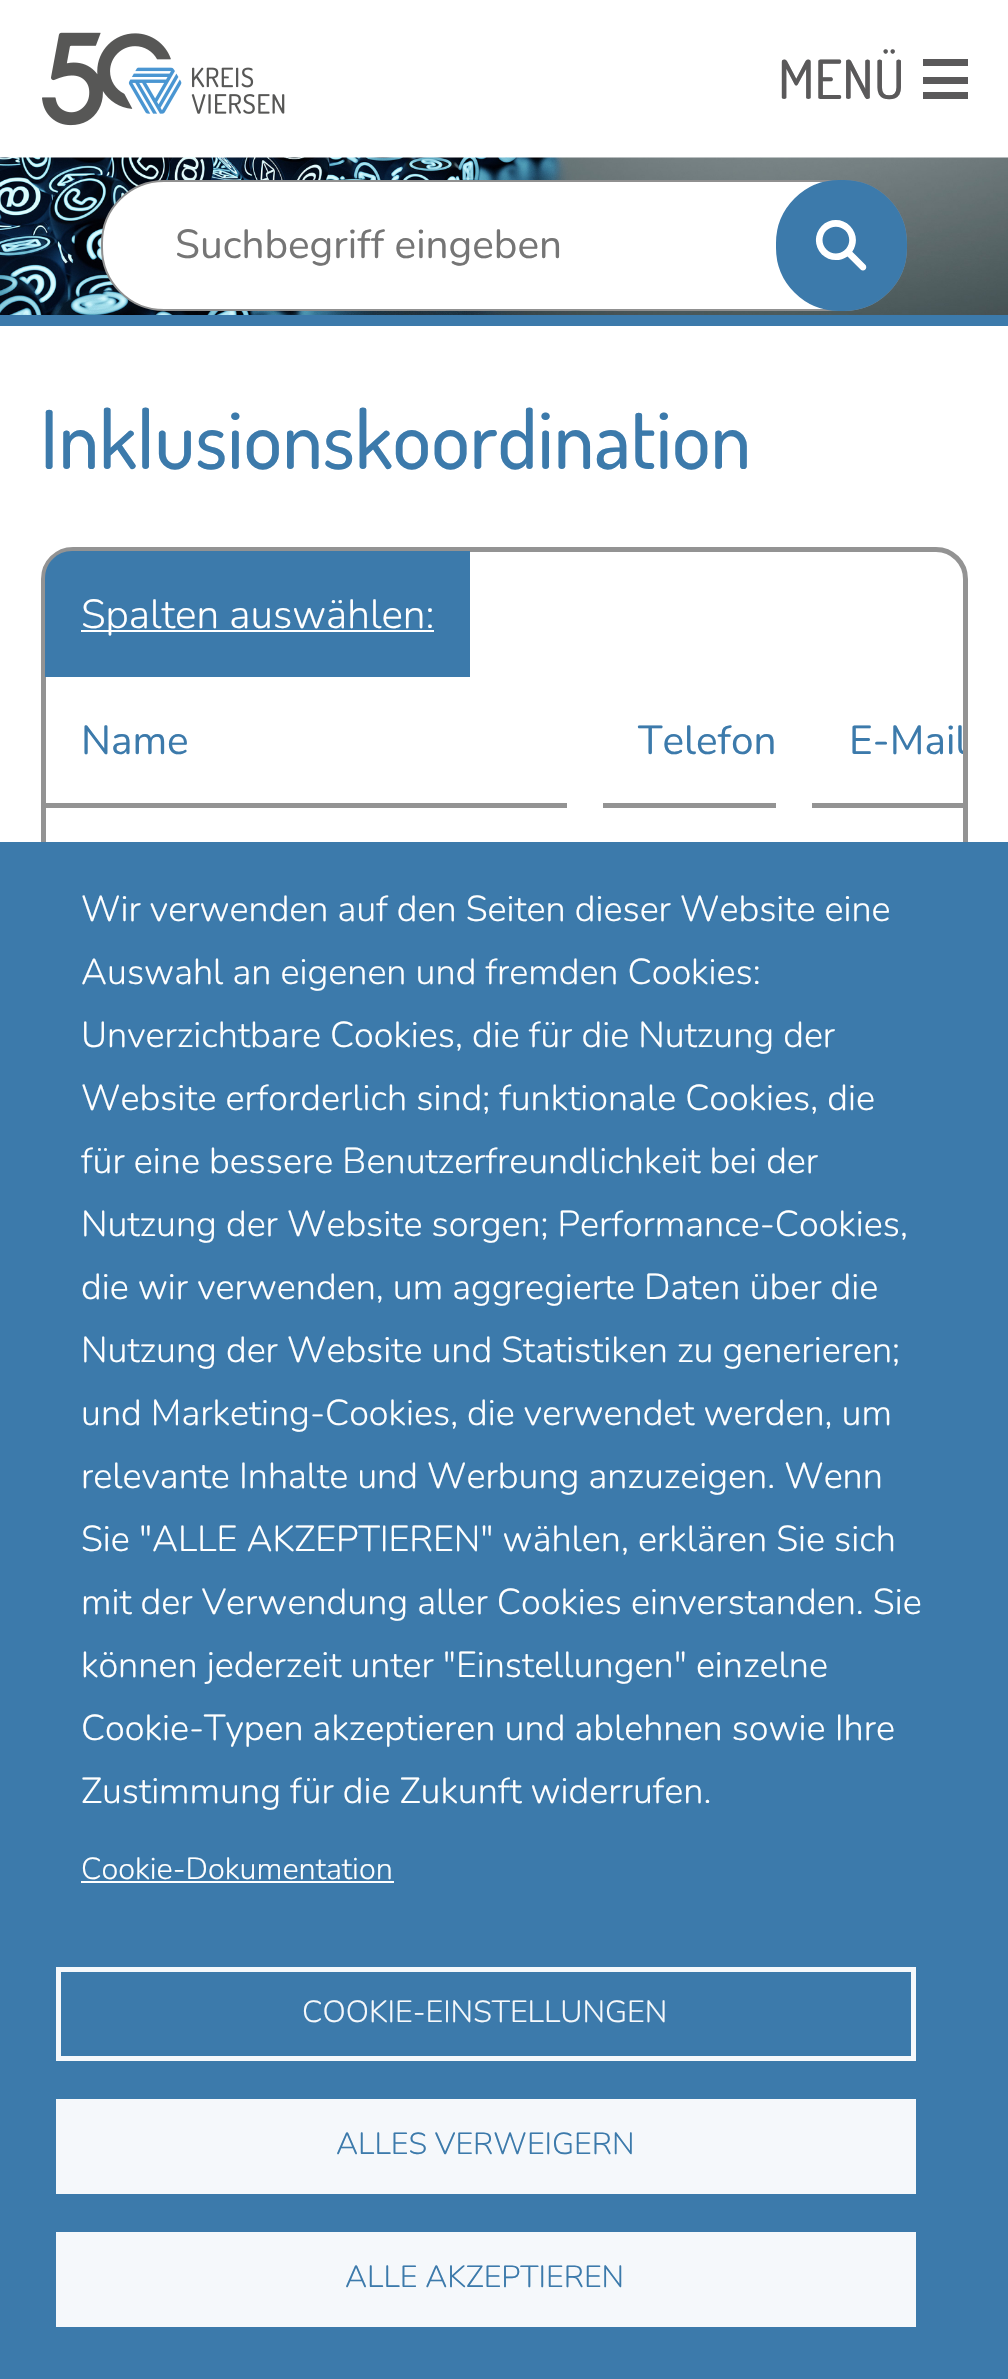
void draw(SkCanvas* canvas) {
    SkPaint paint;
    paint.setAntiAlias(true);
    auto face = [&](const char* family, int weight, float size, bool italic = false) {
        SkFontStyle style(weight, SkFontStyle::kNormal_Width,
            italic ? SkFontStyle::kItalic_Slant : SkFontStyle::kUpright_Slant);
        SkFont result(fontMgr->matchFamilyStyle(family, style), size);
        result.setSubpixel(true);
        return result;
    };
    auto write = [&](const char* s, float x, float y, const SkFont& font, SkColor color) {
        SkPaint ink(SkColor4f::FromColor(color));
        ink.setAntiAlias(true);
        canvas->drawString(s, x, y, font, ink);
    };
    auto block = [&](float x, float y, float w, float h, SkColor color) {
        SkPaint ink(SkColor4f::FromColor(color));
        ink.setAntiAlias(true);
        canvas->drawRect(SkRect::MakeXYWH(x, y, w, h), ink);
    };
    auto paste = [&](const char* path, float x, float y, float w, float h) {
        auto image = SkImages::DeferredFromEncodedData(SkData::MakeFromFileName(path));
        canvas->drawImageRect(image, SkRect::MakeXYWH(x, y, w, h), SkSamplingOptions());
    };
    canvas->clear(SK_ColorWHITE);
    paste("pic1.png", 42, 32, 243, 94);
    auto kFont1 = face("Dosis", 200, 54);
    write("MENÜ", 778, 99, kFont1, SkColorSetRGB(90, 89, 90));
    block(923, 59, 45, 7, SkColorSetRGB(90, 89, 90));
    block(923, 92, 45, 7, SkColorSetRGB(90, 89, 90));
    block(923, 77, 45, 7, SkColorSetRGB(90, 89, 90));
    block(0, 315, 1008, 11, SkColorSetRGB(60, 122, 171));
    paste("pic2.png", 0, 157, 1008, 158);
    paint.setColor(SK_ColorWHITE);
    canvas->drawRoundRect(SkRect::MakeXYWH(102, 181, 804, 129), 62, 62, paint);
    paint.setStyle(SkPaint::kStroke_Style);
    paint.setStrokeWidth(2);
    paint.setColor(SkColorSetRGB(144, 144, 144));
    canvas->drawRoundRect(SkRect::MakeXYWH(102, 181, 804, 129), 62, 62, paint);
    auto kFont2 = face("Nunito", 400, 40.5f);
    write("Suchbegriff eingeben", 175, 258, kFont2, SkColorSetRGB(117, 117, 117));
    paint.setStyle(SkPaint::kFill_Style);
    paint.setColor(SkColorSetRGB(60, 122, 171));
    canvas->drawRoundRect(SkRect::MakeXYWH(777, 181, 129, 129), 62, 62, paint);
    paint.setStyle(SkPaint::kStroke_Style);
    canvas->drawRoundRect(SkRect::MakeXYWH(777, 181, 129, 129), 62, 62, paint);
    paste("pic3.png", 815, 220, 52, 51);
    auto kFont3 = face("Dosis", 200, 81);
    write("Inklusionskoordination", 40, 469, kFont3, SkColorSetRGB(60, 122, 171));
    paint.setStrokeWidth(5);
    paint.setColor(SkColorSetRGB(147, 147, 147));
    canvas->drawRoundRect(SkRect::MakeXYWH(43.5f, 549.5f, 922, 902), 29.5f, 29.5f, paint);
    paint.setStyle(SkPaint::kFill_Style);
    paint.setColor(SkColorSetRGB(60, 122, 171));
    canvas->drawPath(SkPathBuilder().moveTo(72, 551).lineTo(470, 551).lineTo(470, 677).lineTo(45, 677).lineTo(45, 578).cubicTo(45, 563, 57, 551, 72, 551).close().detach(), paint);
    block(81, 630, 353, 2, SK_ColorWHITE);
    auto kFont4 = face("Nunito", 300, 40.5f);
    write("Spalten auswählen:", 81, 628, kFont4, SK_ColorWHITE);
    write("Name", 81, 754, kFont2, SkColorSetRGB(60, 122, 171));
    block(45, 803, 918, 5, SkColorSetRGB(147, 147, 147));
    block(567, 803, 36, 5, SK_ColorWHITE);
    write("Telefon", 638, 754, kFont2, SkColorSetRGB(60, 122, 171));
    block(776, 803, 36, 5, SK_ColorWHITE);
    canvas->save();
    canvas->clipPath(SkPathBuilder().moveTo(72, 551).lineTo(936, 551).cubicTo(951, 551, 963, 563, 963, 578).lineTo(963, 1422).cubicTo(963, 1437, 951, 1449, 936, 1449).lineTo(72, 1449).cubicTo(57, 1449, 45, 1437, 45, 1422).lineTo(45, 578).cubicTo(45, 563, 57, 551, 72, 551).close().detach(), true);
    write("E-Mail", 849, 754, kFont2, SkColorSetRGB(60, 122, 171));
    canvas->restore();
    block(0, 842, 1008, 1537, SkColorSetRGB(60, 122, 171));
    auto kFont5 = face("Nunito", 300, 36);
    write("Wir verwenden auf den Seiten dieser Website eine", 81, 921, kFont5, SK_ColorWHITE);
    write("Auswahl an eigenen und fremden Cookies:", 81, 984, kFont5, SK_ColorWHITE);
    write("Unverzichtbare Cookies, die für die Nutzung der", 81, 1047, kFont5, SK_ColorWHITE);
    write("Website erforderlich sind; funktionale Cookies, die", 81, 1110, kFont5, SK_ColorWHITE);
    write("für eine bessere Benutzerfreundlichkeit bei der", 81, 1173, kFont5, SK_ColorWHITE);
    write("Nutzung der Website sorgen; Performance-Cookies,", 81, 1236, kFont5, SK_ColorWHITE);
    write("die wir verwenden, um aggregierte Daten über die", 81, 1299, kFont5, SK_ColorWHITE);
    write("Nutzung der Website und Statistiken zu generieren;", 81, 1362, kFont5, SK_ColorWHITE);
    write("und Marketing-Cookies, die verwendet werden, um", 81, 1425, kFont5, SK_ColorWHITE);
    write("relevante Inhalte und Werbung anzuzeigen. Wenn", 81, 1488, kFont5, SK_ColorWHITE);
    write("Sie \"ALLE AKZEPTIEREN\" wählen, erklären Sie sich", 81, 1551, kFont5, SK_ColorWHITE);
    write("mit der Verwendung aller Cookies einverstanden. Sie", 81, 1614, kFont5, SK_ColorWHITE);
    write("können jederzeit unter \"Einstellungen\" einzelne", 81, 1677, kFont5, SK_ColorWHITE);
    write("Cookie-Typen akzeptieren und ablehnen sowie Ihre", 81, 1740, kFont5, SK_ColorWHITE);
    write("Zustimmung für die Zukunft widerrufen.", 81, 1803, kFont5, SK_ColorWHITE);
    auto kFont6 = face("Nunito", 300, 30.6f);
    write("Cookie-Dokumentation", 81, 1879, kFont6, SK_ColorWHITE);
    block(81, 1881, 313, 2, SK_ColorWHITE);
    paint.setStyle(SkPaint::kStroke_Style);
    paint.setColor(SkColorSetRGB(245, 248, 251));
    canvas->drawRect(SkRect::MakeXYWH(58.5f, 1969.5f, 855, 89), paint);
    write("COOKIE-EINSTELLUNGEN", 302, 2022, kFont6, SkColorSetRGB(245, 248, 251));
    block(56, 2099, 860, 95, SkColorSetRGB(245, 248, 251));
    write("ALLES VERWEIGERN", 336, 2154, kFont6, SkColorSetRGB(60, 122, 171));
    block(56, 2232, 860, 95, SkColorSetRGB(245, 248, 251));
    write("ALLE AKZEPTIEREN", 345, 2287, kFont6, SkColorSetRGB(60, 122, 171));
}
